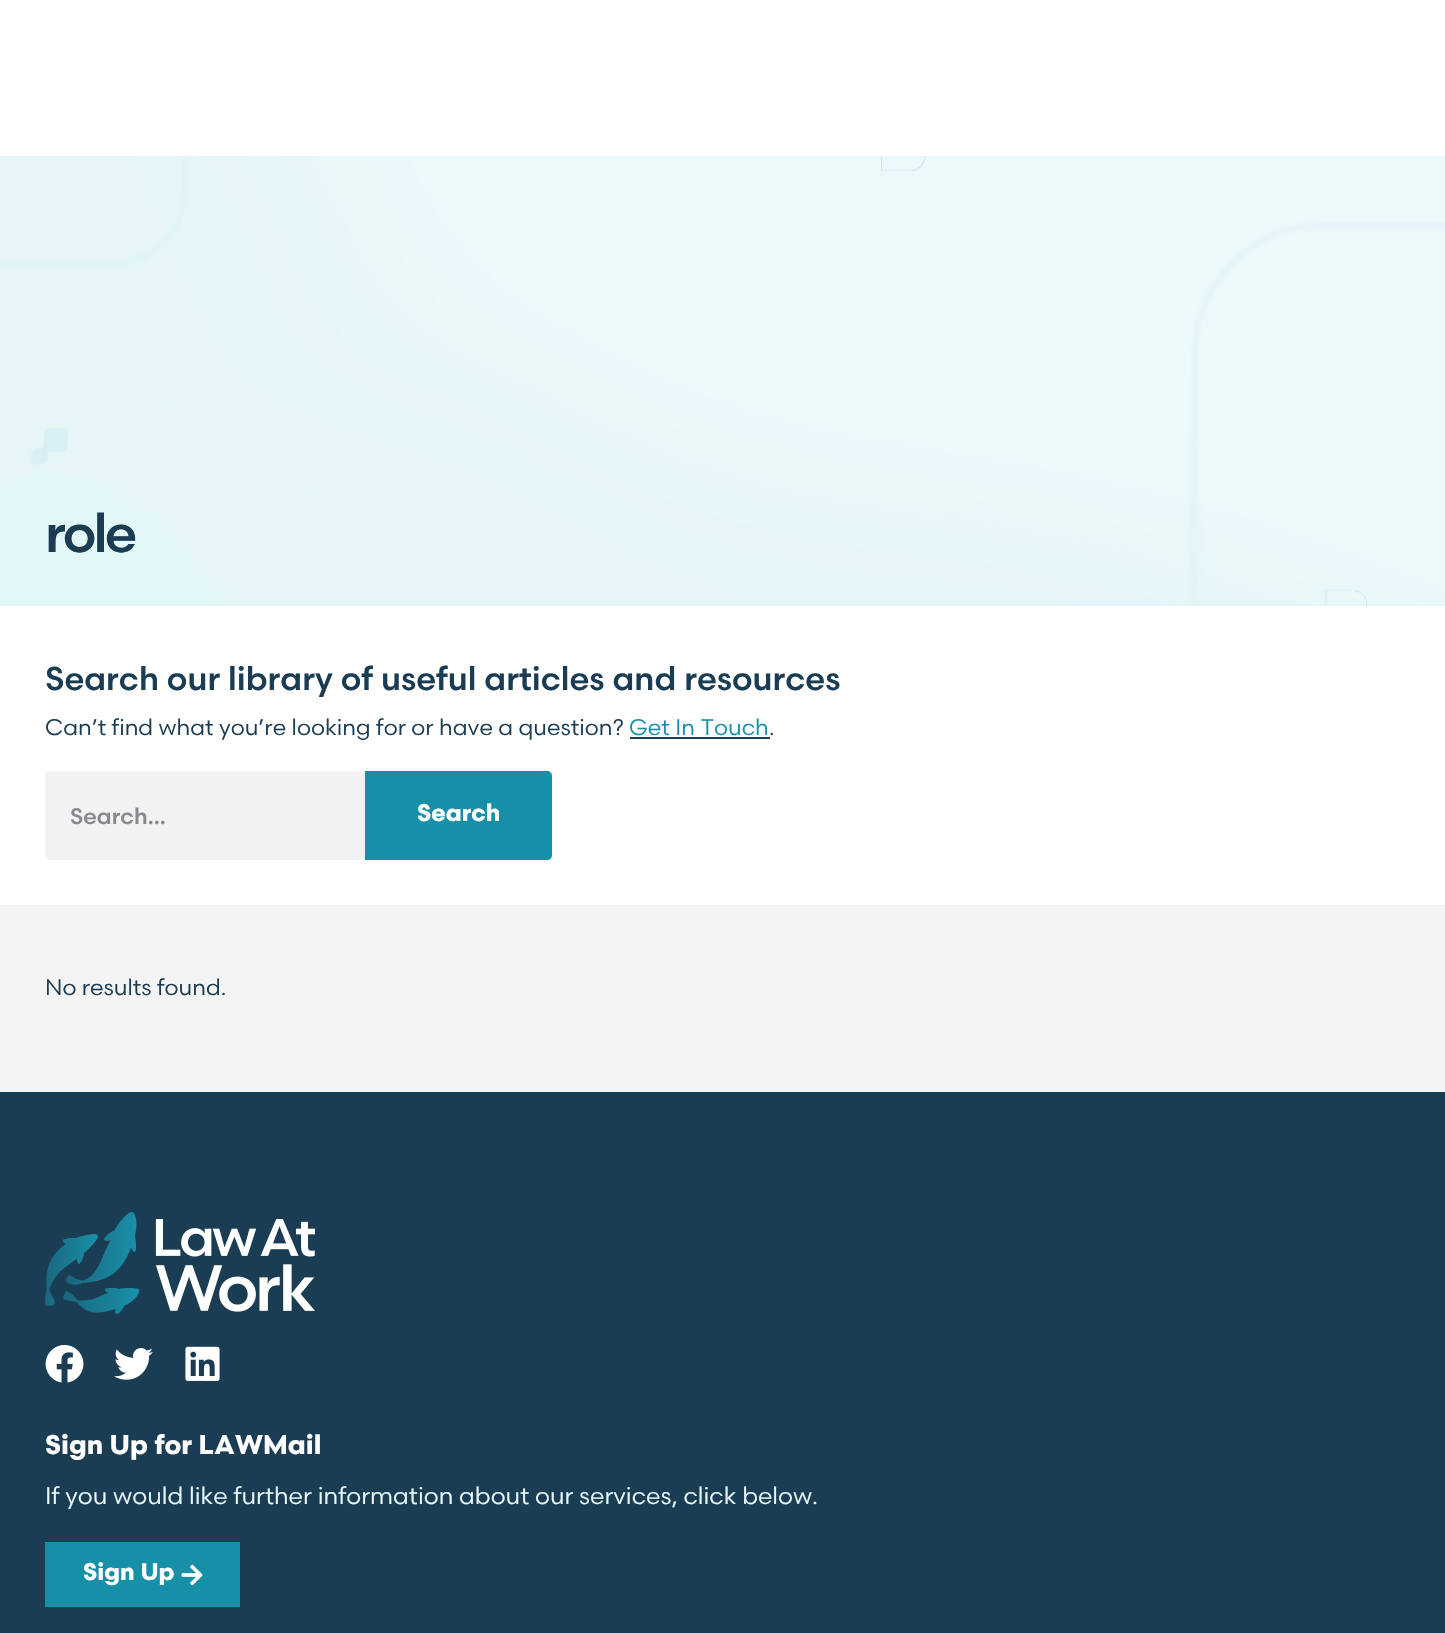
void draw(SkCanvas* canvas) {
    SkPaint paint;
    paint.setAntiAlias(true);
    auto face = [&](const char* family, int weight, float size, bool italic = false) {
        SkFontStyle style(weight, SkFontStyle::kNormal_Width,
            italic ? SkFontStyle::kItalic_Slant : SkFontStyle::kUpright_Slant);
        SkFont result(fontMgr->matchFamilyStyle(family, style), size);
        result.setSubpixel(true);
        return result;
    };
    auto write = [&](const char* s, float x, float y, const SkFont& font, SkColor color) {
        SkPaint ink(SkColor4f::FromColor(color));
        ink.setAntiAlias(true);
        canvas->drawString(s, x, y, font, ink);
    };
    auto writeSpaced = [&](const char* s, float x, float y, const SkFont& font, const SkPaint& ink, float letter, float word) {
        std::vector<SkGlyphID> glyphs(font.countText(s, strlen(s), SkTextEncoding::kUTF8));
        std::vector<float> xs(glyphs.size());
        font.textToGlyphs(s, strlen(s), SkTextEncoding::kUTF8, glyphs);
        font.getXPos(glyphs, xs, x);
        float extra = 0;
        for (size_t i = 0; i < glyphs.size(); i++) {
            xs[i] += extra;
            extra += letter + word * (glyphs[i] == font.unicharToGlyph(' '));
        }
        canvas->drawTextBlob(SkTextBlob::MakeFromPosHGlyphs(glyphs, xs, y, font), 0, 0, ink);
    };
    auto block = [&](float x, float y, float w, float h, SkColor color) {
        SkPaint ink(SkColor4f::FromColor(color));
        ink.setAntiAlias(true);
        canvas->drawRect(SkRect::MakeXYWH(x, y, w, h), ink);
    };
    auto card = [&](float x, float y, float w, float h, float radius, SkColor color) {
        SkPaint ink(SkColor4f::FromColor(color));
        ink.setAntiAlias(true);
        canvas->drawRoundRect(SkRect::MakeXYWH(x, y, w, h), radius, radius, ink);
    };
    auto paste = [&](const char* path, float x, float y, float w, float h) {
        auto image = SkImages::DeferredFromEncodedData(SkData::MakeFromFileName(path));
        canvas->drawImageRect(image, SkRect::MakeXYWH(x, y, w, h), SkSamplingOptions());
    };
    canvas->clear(SK_ColorWHITE);
    paste("pic1.png", 0, 156, 1445, 450);
    auto kFont1 = face("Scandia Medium", 500, 54);
    paint.setColor(SkColorSetRGB(26, 61, 84));
    writeSpaced("role", 45, 552, kFont1, paint, -3, 0);
    auto kFont2 = face("Scandia Medium", 500, 33);
    write("Search our library of useful articles and resources", 45, 690, kFont2, SkColorSetRGB(26, 61, 84));
    auto kFont3 = face("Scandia", 400, 22.5f);
    write("Can’t find what you’re looking for or have a question?", 45, 735, kFont3, SkColorSetRGB(26, 61, 84));
    write("Get In Touch", 629, 735, kFont3, SkColorSetRGB(23, 143, 166));
    block(630, 737, 140, 2, SkColorSetRGB(26, 61, 84));
    write(".", 769, 735, kFont3, SkColorSetRGB(26, 61, 84));
    card(45, 771, 507, 89, 5, SkColorSetRGB(241, 242, 243));
    auto kFont4 = face("Scandia Medium", 500, 22.5f);
    write("Search...", 70, 824, kFont4, SkColorSetRGB(134, 138, 142));
    paint.setColor(SkColorSetRGB(23, 143, 166));
    canvas->drawPath(SkPathBuilder().moveTo(365, 771).lineTo(547, 771).cubicTo(550, 771, 552, 773, 552, 776).lineTo(552, 855).cubicTo(552, 858, 550, 860, 547, 860).lineTo(365, 860).close().detach(), paint);
    auto kFont5 = face("Scandia", 700, 24);
    write("Search", 417, 821, kFont5, SK_ColorWHITE);
    block(0, 905, 1445, 187, SkColorSetRGB(244, 244, 244));
    write("No results found.", 45, 995, kFont3, SkColorSetRGB(26, 61, 84));
    block(0, 1092, 1445, 541, SkColorSetRGB(26, 61, 84));
    paste("pic2.png", 45, 1212, 270, 102);
    paste("pic3.png", 45, 1345, 39, 38);
    paste("pic4.png", 114, 1348, 39, 32);
    paste("pic5.png", 185, 1346, 35, 35);
    auto kFont6 = face("Scandia", 700, 27);
    write("Sign Up for LAWMail", 45, 1454, kFont6, SK_ColorWHITE);
    auto kFont7 = face("Scandia", 400, 24);
    write("If you would like further information about our services, click below.", 45, 1504, kFont7, SkColorSetRGB(231, 248, 250));
    block(45, 1542, 195, 65, SkColorSetRGB(23, 143, 166));
    write("Sign Up", 83, 1580, kFont5, SK_ColorWHITE);
    paste("pic6.png", 181, 1564, 22, 22);
}
